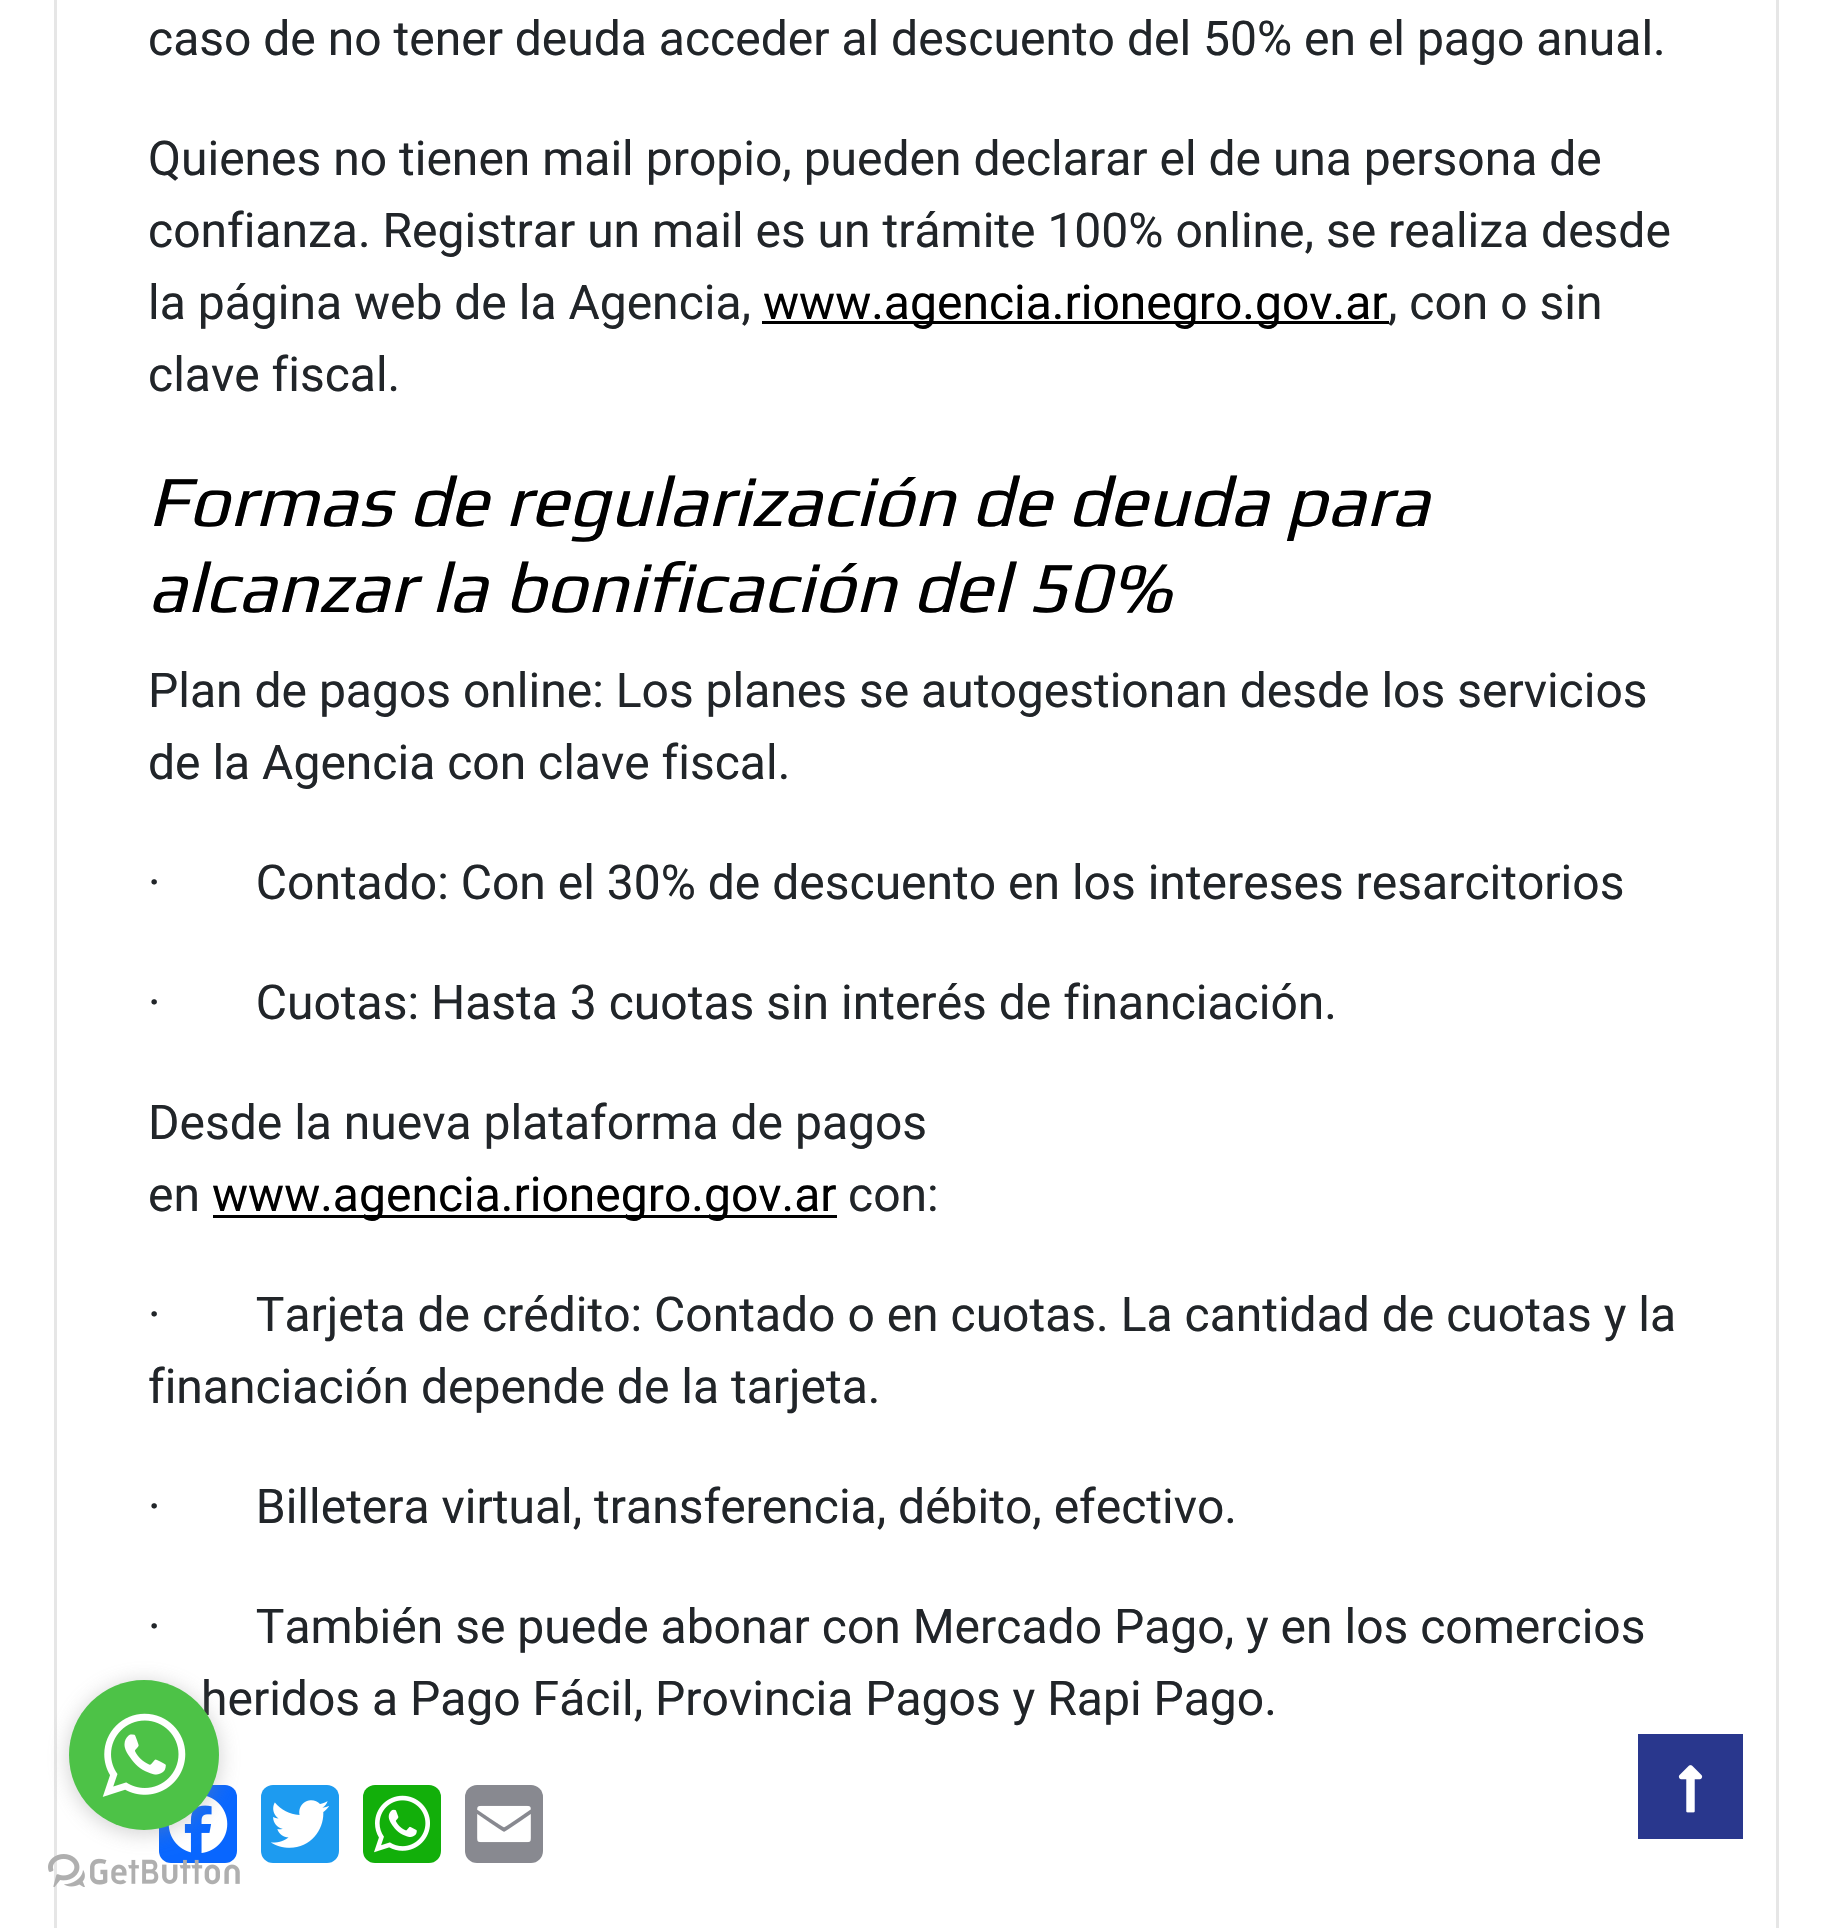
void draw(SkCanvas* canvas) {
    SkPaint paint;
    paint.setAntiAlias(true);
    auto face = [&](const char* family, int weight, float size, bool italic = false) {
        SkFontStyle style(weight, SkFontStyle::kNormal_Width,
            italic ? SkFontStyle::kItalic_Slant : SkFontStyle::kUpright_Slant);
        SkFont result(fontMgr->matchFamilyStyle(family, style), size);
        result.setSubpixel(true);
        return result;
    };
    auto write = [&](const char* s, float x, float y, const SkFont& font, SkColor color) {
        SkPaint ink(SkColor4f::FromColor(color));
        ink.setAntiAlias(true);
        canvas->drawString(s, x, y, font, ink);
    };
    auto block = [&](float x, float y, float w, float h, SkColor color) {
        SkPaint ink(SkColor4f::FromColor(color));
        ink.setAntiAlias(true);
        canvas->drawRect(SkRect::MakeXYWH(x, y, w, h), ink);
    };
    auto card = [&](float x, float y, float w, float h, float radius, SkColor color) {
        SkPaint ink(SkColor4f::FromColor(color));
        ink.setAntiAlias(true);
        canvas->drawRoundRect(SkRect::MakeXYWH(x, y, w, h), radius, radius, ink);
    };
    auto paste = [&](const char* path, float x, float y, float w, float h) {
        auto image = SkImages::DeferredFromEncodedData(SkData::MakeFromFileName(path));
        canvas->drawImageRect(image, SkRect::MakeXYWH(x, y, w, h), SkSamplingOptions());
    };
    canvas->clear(SK_ColorWHITE);
    paint.setStyle(SkPaint::kStroke_Style);
    paint.setStrokeWidth(3);
    paint.setColor(SkColorSetRGB(230, 230, 230));
    canvas->drawRect(SkRect::MakeXYWH(55.5f, -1.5f, 1722, 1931), paint);
    auto kFont1 = face("Roboto", 400, 48);
    write("caso de no tener deuda acceder al descuento del 50% en el pago anual.", 148, 55, kFont1, SkColorSetRGB(33, 37, 41));
    write("Quienes no tienen mail propio, pueden declarar el de una persona de", 148, 175, kFont1, SkColorSetRGB(33, 37, 41));
    write("confianza. Registrar un mail es un trámite 100% online, se realiza desde", 148, 247, kFont1, SkColorSetRGB(33, 37, 41));
    write("la página web de la Agencia,", 148, 319, kFont1, SkColorSetRGB(33, 37, 41));
    block(762, 321, 627, 3, SK_ColorBLACK);
    write("www.agencia.rionegro.gov.ar", 763, 319, kFont1, SK_ColorBLACK);
    write(", con o sin", 1388, 319, kFont1, SkColorSetRGB(33, 37, 41));
    write("clave fiscal.", 148, 391, kFont1, SkColorSetRGB(33, 37, 41));
    auto kFont2 = face("Play", 400, 72, true);
    write("Formas de regularización de deuda para", 148, 526, kFont2, SK_ColorBLACK);
    write("alcanzar la bonificación del 50%", 148, 612, kFont2, SK_ColorBLACK);
    write("Plan de pagos online: Los planes se autogestionan desde los servicios", 148, 707, kFont1, SkColorSetRGB(33, 37, 41));
    write("de la Agencia con clave fiscal.", 148, 779, kFont1, SkColorSetRGB(33, 37, 41));
    write("·        Contado: Con el 30% de descuento en los intereses resarcitorios", 148, 899, kFont1, SkColorSetRGB(33, 37, 41));
    write("·        Cuotas: Hasta 3 cuotas sin interés de financiación.", 148, 1019, kFont1, SkColorSetRGB(33, 37, 41));
    write("Desde la nueva plataforma de pagos", 148, 1139, kFont1, SkColorSetRGB(33, 37, 41));
    write("en", 148, 1211, kFont1, SkColorSetRGB(33, 37, 41));
    block(213, 1215, 624, 3, SK_ColorBLACK);
    write("www.agencia.rionegro.gov.ar", 212, 1211, kFont1, SK_ColorBLACK);
    write("con:", 848, 1211, kFont1, SkColorSetRGB(33, 37, 41));
    write("·        Tarjeta de crédito: Contado o en cuotas. La cantidad de cuotas y la", 148, 1331, kFont1, SkColorSetRGB(33, 37, 41));
    write("financiación depende de la tarjeta.", 148, 1403, kFont1, SkColorSetRGB(33, 37, 41));
    write("·        Billetera virtual, transferencia, débito, efectivo.", 148, 1523, kFont1, SkColorSetRGB(33, 37, 41));
    write("·        También se puede abonar con Mercado Pago, y en los comercios", 148, 1643, kFont1, SkColorSetRGB(33, 37, 41));
    write("heridos a Pago Fácil, Provincia Pagos y Rapi Pago.", 201, 1715, kFont1, SkColorSetRGB(33, 37, 41));
    card(159, 1785, 78, 78, 12, SkColorSetRGB(8, 102, 255));
    paste("pic1.png", 168, 1795, 60, 58);
    card(261, 1785, 78, 78, 12, SkColorSetRGB(29, 155, 240));
    paste("pic2.png", 271, 1800, 58, 48);
    card(363, 1785, 78, 78, 12, SkColorSetRGB(18, 175, 10));
    paste("pic3.png", 374, 1795, 56, 58);
    card(465, 1785, 78, 78, 12, SkColorSetRGB(136, 137, 144));
    paste("pic4.png", 477, 1805, 54, 38);
    block(1638, 1734, 105, 105, SkColorSetRGB(41, 55, 141));
    paste("pic5.png", 1678, 1765, 25, 48);
    paste("pic7.png", 48, 1854, 192, 33);
    paint.setStyle(SkPaint::kFill_Style);
    paint.setColor(SkColorSetARGB(102, 136, 136, 136));
    paint.setMaskFilter(SkMaskFilter::MakeBlur(kNormal_SkBlurStyle, 10.5f));
    canvas->drawRoundRect(SkRect::MakeXYWH(69, 1683, 150, 150), 75, 75, paint);
    paint.setMaskFilter(nullptr);
    paint.setColor(SkColorSetRGB(77, 194, 71));
    canvas->drawCircle(144, 1755, 75, paint);
    paste("pic6.png", 102, 1713, 84, 84);
}
